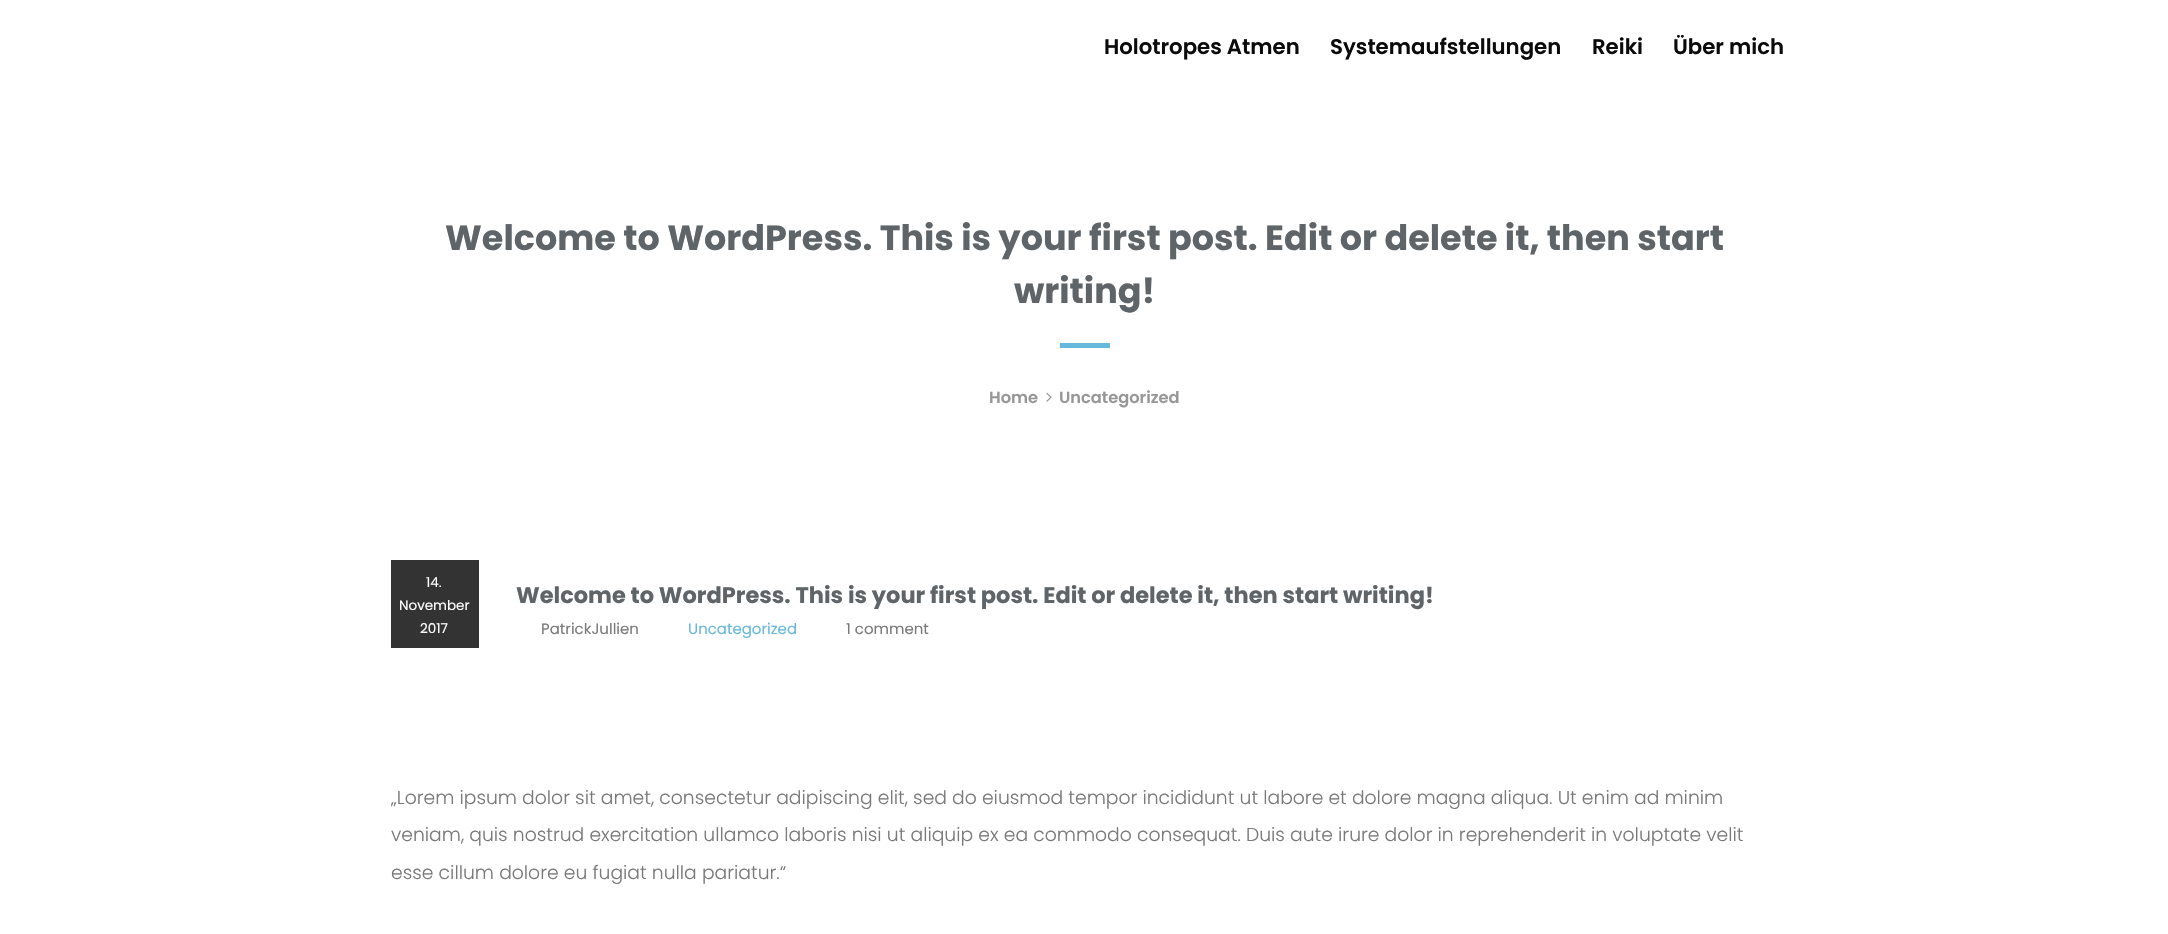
void draw(SkCanvas* canvas) {
    SkPaint paint;
    paint.setAntiAlias(true);
    auto face = [&](const char* family, int weight, float size, bool italic = false) {
        SkFontStyle style(weight, SkFontStyle::kNormal_Width,
            italic ? SkFontStyle::kItalic_Slant : SkFontStyle::kUpright_Slant);
        SkFont result(fontMgr->matchFamilyStyle(family, style), size);
        result.setSubpixel(true);
        return result;
    };
    auto write = [&](const char* s, float x, float y, const SkFont& font, SkColor color) {
        SkPaint ink(SkColor4f::FromColor(color));
        ink.setAntiAlias(true);
        canvas->drawString(s, x, y, font, ink);
    };
    auto block = [&](float x, float y, float w, float h, SkColor color) {
        SkPaint ink(SkColor4f::FromColor(color));
        ink.setAntiAlias(true);
        canvas->drawRect(SkRect::MakeXYWH(x, y, w, h), ink);
    };
    auto paste = [&](const char* path, float x, float y, float w, float h) {
        auto image = SkImages::DeferredFromEncodedData(SkData::MakeFromFileName(path));
        canvas->drawImageRect(image, SkRect::MakeXYWH(x, y, w, h), SkSamplingOptions());
    };
    canvas->clear(SK_ColorWHITE);
    auto kFont1 = face("Poppins", 600, 21.25f);
    write("Holotropes Atmen", 1104, 54, kFont1, SkColorSetRGB(11, 11, 11));
    write("Systemaufstellungen", 1330, 54, kFont1, SkColorSetRGB(11, 11, 11));
    write("Reiki", 1592, 54, kFont1, SkColorSetRGB(11, 11, 11));
    write("Über mich", 1673, 54, kFont1, SkColorSetRGB(11, 11, 11));
    auto kFont2 = face("Poppins", 700, 35);
    write("Welcome to WordPress. This is your first post. Edit or delete it, then start", 445, 250, kFont2, SkColorSetRGB(94, 100, 104));
    write("writing!", 1014, 303, kFont2, SkColorSetRGB(94, 100, 104));
    block(1060, 343, 50, 5, SkColorSetRGB(102, 184, 220));
    auto kFont3 = face("Poppins", 600, 16.25f);
    write("Home", 989, 403, kFont3, SkColorSetRGB(151, 151, 151));
    paste("pic1.png", 1046, 392, 6, 10);
    write("Uncategorized", 1059, 403, kFont3, SkColorSetRGB(151, 151, 151));
    block(391, 560, 88, 88, SkColorSetRGB(51, 51, 51));
    auto kFont4 = face("Poppins", 400, 13.5f);
    write("14.", 426, 587, kFont4, SK_ColorWHITE);
    write("November", 399, 610, kFont4, SK_ColorWHITE);
    write("2017", 420, 633, kFont4, SK_ColorWHITE);
    auto kFont5 = face("Poppins", 700, 22.5f);
    write("Welcome to WordPress. This is your first post. Edit or delete it, then start writing!", 516, 603, kFont5, SkColorSetRGB(94, 100, 104));
    auto kFont6 = face("Poppins", 400, 15);
    write("PatrickJullien", 541, 634, kFont6, SkColorSetRGB(121, 121, 121));
    write("Uncategorized", 688, 634, kFont6, SkColorSetRGB(102, 184, 220));
    write("1 comment", 846, 634, kFont6, SkColorSetRGB(121, 121, 121));
    canvas->save();
    canvas->clipRect(SkRect::MakeXYWH(391, 648, 1375, 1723));
    auto kFont7 = face("Poppins", 300, 18.75f);
    write("„Lorem ipsum dolor sit amet, consectetur adipiscing elit, sed do eiusmod tempor incididunt ut labore et dolore magna aliqua. Ut enim ad minim", 391, 804, kFont7, SkColorSetRGB(121, 121, 121));
    canvas->restore();
    write("veniam, quis nostrud exercitation ullamco laboris nisi ut aliquip ex ea commodo consequat. Duis aute irure dolor in reprehenderit in voluptate velit", 391, 841, kFont7, SkColorSetRGB(121, 121, 121));
    write("esse cillum dolore eu fugiat nulla pariatur.“", 391, 879, kFont7, SkColorSetRGB(121, 121, 121));
}
